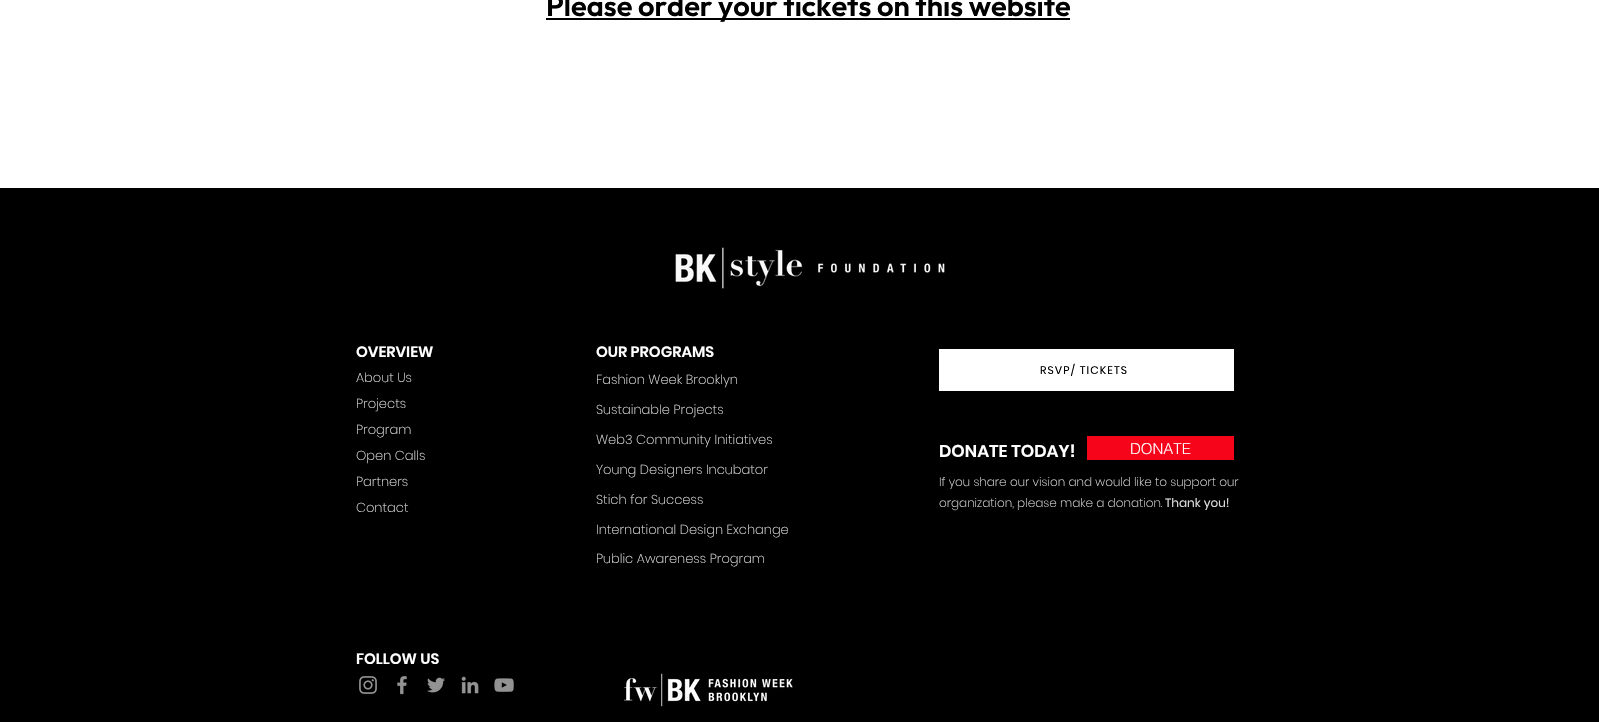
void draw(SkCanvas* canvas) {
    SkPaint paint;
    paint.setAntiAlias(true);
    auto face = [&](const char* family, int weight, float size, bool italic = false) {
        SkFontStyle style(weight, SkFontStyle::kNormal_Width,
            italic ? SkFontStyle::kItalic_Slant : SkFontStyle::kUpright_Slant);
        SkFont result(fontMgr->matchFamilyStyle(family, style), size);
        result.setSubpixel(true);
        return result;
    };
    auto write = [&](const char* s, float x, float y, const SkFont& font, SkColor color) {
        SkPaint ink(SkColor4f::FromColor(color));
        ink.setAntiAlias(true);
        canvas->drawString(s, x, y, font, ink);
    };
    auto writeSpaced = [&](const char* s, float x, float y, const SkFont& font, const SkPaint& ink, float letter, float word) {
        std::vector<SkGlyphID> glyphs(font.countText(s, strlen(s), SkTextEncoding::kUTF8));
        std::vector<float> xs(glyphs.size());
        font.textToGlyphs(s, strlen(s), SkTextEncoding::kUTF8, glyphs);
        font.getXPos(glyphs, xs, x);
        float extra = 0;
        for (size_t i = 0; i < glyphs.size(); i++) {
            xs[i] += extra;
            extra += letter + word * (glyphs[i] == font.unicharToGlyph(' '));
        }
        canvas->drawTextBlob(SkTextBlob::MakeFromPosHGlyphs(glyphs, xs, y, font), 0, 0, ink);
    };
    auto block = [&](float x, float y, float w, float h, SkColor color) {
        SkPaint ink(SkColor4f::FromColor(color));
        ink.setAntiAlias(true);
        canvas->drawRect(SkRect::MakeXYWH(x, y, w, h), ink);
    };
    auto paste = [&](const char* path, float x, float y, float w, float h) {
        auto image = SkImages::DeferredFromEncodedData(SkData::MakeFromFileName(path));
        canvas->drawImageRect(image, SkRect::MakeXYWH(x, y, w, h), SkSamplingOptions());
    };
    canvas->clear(SK_ColorBLACK);
    block(0, 0, 1599, 188, SK_ColorWHITE);
    block(546, 18, 524, 2, SK_ColorBLACK);
    auto kFont1 = face("Outfit", 600, 29);
    write("Please order your tickets on this website", 546, 16, kFont1, SK_ColorBLACK);
    paste("pic1.png", 675, 247, 270, 42);
    auto kFont2 = face("Poppins", 600, 15);
    write("OVERVIEW", 356, 357, kFont2, SK_ColorWHITE);
    write("OUR PROGRAMS", 596, 357, kFont2, SK_ColorWHITE);
    block(939, 349, 295, 42, SK_ColorWHITE);
    auto kFont3 = face("Poppins", 400, 11);
    paint.setColor(SK_ColorBLACK);
    writeSpaced("RSVP/ TICKETS", 1040, 374, kFont3, paint, 1.1f, 0);
    auto kFont4 = face("Poppins", 200, 13);
    write("About Us", 356, 382, kFont4, SkColorSetRGB(219, 219, 219));
    write("Projects", 356, 408, kFont4, SkColorSetRGB(219, 219, 219));
    write("Program", 356, 434, kFont4, SkColorSetRGB(219, 219, 219));
    write("Open Calls", 356, 460, kFont4, SkColorSetRGB(219, 219, 219));
    write("Partners", 356, 486, kFont4, SkColorSetRGB(219, 219, 219));
    write("Contact", 356, 512, kFont4, SkColorSetRGB(219, 219, 219));
    write("Fashion Week Brooklyn", 596, 384, kFont4, SkColorSetRGB(219, 219, 219));
    write("Sustainable Projects", 596, 414, kFont4, SkColorSetRGB(219, 219, 219));
    write("Web3 Community Initiatives", 596, 444, kFont4, SkColorSetRGB(219, 219, 219));
    write("Young Designers Incubator", 596, 474, kFont4, SkColorSetRGB(219, 219, 219));
    write("Stich for Success", 596, 504, kFont4, SkColorSetRGB(219, 219, 219));
    write("International Design Exchange", 596, 534, kFont4, SkColorSetRGB(219, 219, 219));
    write("Public Awareness Program", 596, 563, kFont4, SkColorSetRGB(219, 219, 219));
    auto kFont5 = face("Poppins", 600, 17);
    write("DONATE TODAY!", 939, 457, kFont5, SK_ColorWHITE);
    block(1087, 436, 147, 24, SkColorSetRGB(246, 4, 25));
    auto kFont6 = face("helvetica", 300, 15);
    write("DONATE", 1130, 454, kFont6, SK_ColorWHITE);
    auto kFont7 = face("Poppins", 200, 12);
    write("If you share our vision and would like to support our", 939, 486, kFont7, SkColorSetRGB(219, 219, 219));
    write("organization, please make a donation.", 939, 507, kFont7, SkColorSetRGB(219, 219, 219));
    auto kFont8 = face("Poppins", 400, 12);
    write("Thank you!", 1165, 507, kFont8, SkColorSetRGB(219, 219, 219));
    write("FOLLOW US", 356, 664, kFont2, SK_ColorWHITE);
    paste("pic2.png", 359, 676, 18, 18);
    paste("pic3.png", 397, 675, 10, 20);
    paste("pic4.png", 427, 677, 18, 16);
    paste("pic5.png", 461, 676, 18, 18);
    paste("pic6.png", 494, 678, 20, 14);
    paste("pic7.png", 624, 673, 169, 34);
}
